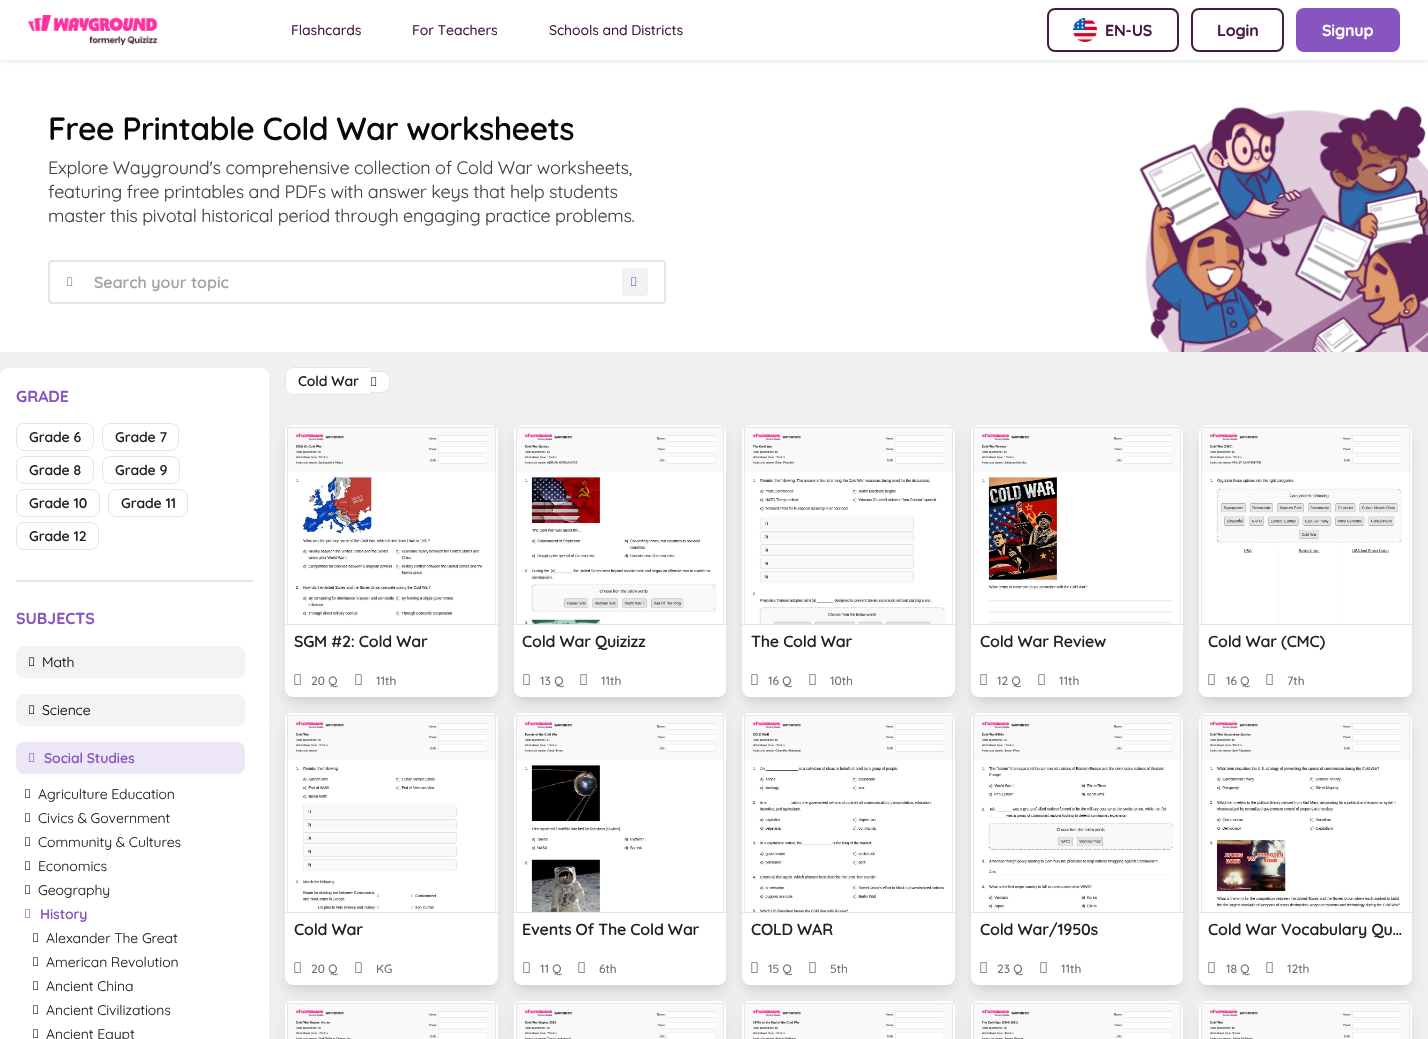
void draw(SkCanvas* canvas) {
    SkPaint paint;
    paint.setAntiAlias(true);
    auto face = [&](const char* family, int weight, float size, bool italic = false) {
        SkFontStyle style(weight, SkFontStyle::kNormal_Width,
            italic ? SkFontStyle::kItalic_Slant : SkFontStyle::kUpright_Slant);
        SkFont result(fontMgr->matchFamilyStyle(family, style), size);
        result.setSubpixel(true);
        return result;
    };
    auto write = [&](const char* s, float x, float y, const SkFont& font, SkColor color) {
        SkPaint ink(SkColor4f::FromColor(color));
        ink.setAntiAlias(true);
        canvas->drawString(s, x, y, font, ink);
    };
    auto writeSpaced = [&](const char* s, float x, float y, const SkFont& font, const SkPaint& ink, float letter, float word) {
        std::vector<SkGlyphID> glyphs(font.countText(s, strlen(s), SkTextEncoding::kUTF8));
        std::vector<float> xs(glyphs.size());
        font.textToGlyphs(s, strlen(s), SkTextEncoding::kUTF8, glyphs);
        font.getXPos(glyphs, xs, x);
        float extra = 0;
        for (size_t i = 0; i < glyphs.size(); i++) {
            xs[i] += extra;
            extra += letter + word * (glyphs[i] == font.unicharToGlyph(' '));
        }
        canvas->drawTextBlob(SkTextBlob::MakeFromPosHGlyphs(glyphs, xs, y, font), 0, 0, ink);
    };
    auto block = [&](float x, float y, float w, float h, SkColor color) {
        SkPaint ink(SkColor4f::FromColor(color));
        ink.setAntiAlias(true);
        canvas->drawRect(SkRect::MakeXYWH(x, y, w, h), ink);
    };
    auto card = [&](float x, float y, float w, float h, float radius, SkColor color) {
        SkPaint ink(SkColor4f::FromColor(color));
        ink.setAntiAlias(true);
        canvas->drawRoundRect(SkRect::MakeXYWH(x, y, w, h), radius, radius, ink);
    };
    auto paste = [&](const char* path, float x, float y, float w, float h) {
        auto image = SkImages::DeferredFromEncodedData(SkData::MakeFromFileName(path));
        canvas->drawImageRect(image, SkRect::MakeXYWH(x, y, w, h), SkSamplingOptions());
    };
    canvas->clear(SkColorSetRGB(240, 240, 240));
    block(0, 60, 1428, 292, SK_ColorWHITE);
    paint.setColor(SkColorSetARGB(20, 0, 0, 0));
    paint.setMaskFilter(SkMaskFilter::MakeBlur(kNormal_SkBlurStyle, 2));
    canvas->drawRect(SkRect::MakeXYWH(0, 2, 1428, 60), paint);
    paint.setMaskFilter(nullptr);
    block(0, 0, 1428, 60, SK_ColorWHITE);
    paste("pic1.png", 28, 15, 130, 30);
    auto kFont1 = face("Quicksand", 500, 14);
    paint.setColor(SkColorSetRGB(70, 26, 66));
    writeSpaced("Flashcards", 291, 35, kFont1, paint, -0.1f, 0);
    writeSpaced("For Teachers", 412, 35, kFont1, paint, -0.1f, 0);
    writeSpaced("Schools and Districts", 549, 35, kFont1, paint, -0.1f, 0);
    paint.setStyle(SkPaint::kStroke_Style);
    paint.setStrokeWidth(2);
    canvas->drawRoundRect(SkRect::MakeXYWH(1048, 9, 130, 42), 7, 7, paint);
    paste("pic2.png", 1073, 18, 24, 24);
    auto kFont2 = face("Quicksand", 700, 16);
    paint.setStyle(SkPaint::kFill_Style);
    writeSpaced("EN-US", 1105, 36, kFont2, paint, -0.2f, 0);
    paint.setStyle(SkPaint::kStroke_Style);
    canvas->drawRoundRect(SkRect::MakeXYWH(1192, 9, 91, 42), 7, 7, paint);
    paint.setStyle(SkPaint::kFill_Style);
    writeSpaced("Login", 1217, 36, kFont2, paint, -0.2f, 0);
    paint.setColor(SkColorSetRGB(136, 84, 192));
    canvas->drawRoundRect(SkRect::MakeXYWH(1297, 9, 102, 42), 7, 7, paint);
    paint.setStyle(SkPaint::kStroke_Style);
    canvas->drawRoundRect(SkRect::MakeXYWH(1297, 9, 102, 42), 7, 7, paint);
    paint.setStyle(SkPaint::kFill_Style);
    paint.setColor(SK_ColorWHITE);
    writeSpaced("Signup", 1322, 36, kFont2, paint, -0.2f, 0);
    auto kFont3 = face("Quicksand", 600, 32);
    paint.setColor(SkColorSetRGB(9, 9, 9));
    writeSpaced("Free Printable Cold War worksheets", 48, 140, kFont3, paint, -0.65f, 0);
    auto kFont4 = face("Quicksand", 400, 18);
    paint.setColor(SkColorSetRGB(66, 66, 66));
    writeSpaced("Explore Wayground's comprehensive collection of Cold War worksheets,", 48, 174, kFont4, paint, -0.27f, 0);
    writeSpaced("featuring free printables and PDFs with answer keys that help students", 48, 198, kFont4, paint, -0.27f, 0);
    writeSpaced("master this pivotal historical period through engaging practice problems.", 48, 222, kFont4, paint, -0.27f, 0);
    paint.setStyle(SkPaint::kStroke_Style);
    paint.setColor(SkColorSetRGB(229, 229, 229));
    canvas->drawRoundRect(SkRect::MakeXYWH(49, 261, 616, 42), 3, 3, paint);
    paste("pic3.png", 67, 277, 6, 9);
    auto kFont5 = face("Quicksand", 600, 16);
    write("Search your topic", 94, 288, kFont5, SkColorSetRGB(161, 161, 170));
    card(622, 268, 26, 28, 4, SkColorSetRGB(242, 242, 242));
    paste("pic4.png", 631, 277, 6, 9);
    paste("pic5.png", 1139, 106, 289, 246);
    paint.setStyle(SkPaint::kFill_Style);
    paint.setColor(SkColorSetARGB(26, 0, 0, 0));
    paint.setMaskFilter(SkMaskFilter::MakeBlur(kNormal_SkBlurStyle, 7.5f));
    canvas->drawRoundRect(SkRect::MakeXYWH(288, 438, 207, 266), 5, 5, paint);
    paint.setMaskFilter(nullptr);
    paint.setMaskFilter(SkMaskFilter::MakeBlur(kNormal_SkBlurStyle, 7.5f));
    canvas->drawRoundRect(SkRect::MakeXYWH(288, 726, 207, 266), 5, 5, paint);
    paint.setMaskFilter(nullptr);
    paint.setMaskFilter(SkMaskFilter::MakeBlur(kNormal_SkBlurStyle, 7.5f));
    canvas->drawRoundRect(SkRect::MakeXYWH(288, 1014, 207, 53), 5, 5, paint);
    paint.setMaskFilter(nullptr);
    paint.setColor(SK_ColorWHITE);
    canvas->drawPath(SkPathBuilder().moveTo(8, 368).lineTo(261, 368).cubicTo(265.5f, 368, 269, 371.5f, 269, 376).lineTo(269, 1039).lineTo(0, 1039).lineTo(0, 376).cubicTo(0, 371.5f, 3.5f, 368, 8, 368).close().detach(), paint);
    write("GRADE", 16, 402, kFont2, SkColorSetRGB(136, 84, 192));
    paint.setStyle(SkPaint::kStroke_Style);
    paint.setStrokeWidth(1);
    paint.setColor(SkColorSetRGB(229, 229, 229));
    canvas->drawRoundRect(SkRect::MakeXYWH(16.5f, 423.5f, 77, 27), 7.5f, 7.5f, paint);
    auto kFont6 = face("Quicksand", 600, 14);
    paint.setStyle(SkPaint::kFill_Style);
    paint.setColor(SkColorSetRGB(34, 34, 34));
    writeSpaced("Grade 6", 29, 442, kFont6, paint, -0.1f, 0);
    paint.setStyle(SkPaint::kStroke_Style);
    paint.setColor(SkColorSetRGB(229, 229, 229));
    canvas->drawRoundRect(SkRect::MakeXYWH(102.5f, 423.5f, 76, 27), 7.5f, 7.5f, paint);
    paint.setStyle(SkPaint::kFill_Style);
    paint.setColor(SkColorSetRGB(34, 34, 34));
    writeSpaced("Grade 7", 115, 442, kFont6, paint, -0.1f, 0);
    paint.setStyle(SkPaint::kStroke_Style);
    paint.setColor(SkColorSetRGB(229, 229, 229));
    canvas->drawRoundRect(SkRect::MakeXYWH(16.5f, 456.5f, 77, 27), 7.5f, 7.5f, paint);
    paint.setStyle(SkPaint::kFill_Style);
    paint.setColor(SkColorSetRGB(34, 34, 34));
    writeSpaced("Grade 8", 29, 475, kFont6, paint, -0.1f, 0);
    paint.setStyle(SkPaint::kStroke_Style);
    paint.setColor(SkColorSetRGB(229, 229, 229));
    canvas->drawRoundRect(SkRect::MakeXYWH(102.5f, 456.5f, 77, 27), 7.5f, 7.5f, paint);
    paint.setStyle(SkPaint::kFill_Style);
    paint.setColor(SkColorSetRGB(34, 34, 34));
    writeSpaced("Grade 9", 115, 475, kFont6, paint, -0.1f, 0);
    paint.setStyle(SkPaint::kStroke_Style);
    paint.setColor(SkColorSetRGB(229, 229, 229));
    canvas->drawRoundRect(SkRect::MakeXYWH(16.5f, 489.5f, 83, 27), 7.5f, 7.5f, paint);
    paint.setStyle(SkPaint::kFill_Style);
    paint.setColor(SkColorSetRGB(34, 34, 34));
    writeSpaced("Grade 10", 29, 508, kFont6, paint, -0.1f, 0);
    paint.setStyle(SkPaint::kStroke_Style);
    paint.setColor(SkColorSetRGB(229, 229, 229));
    canvas->drawRoundRect(SkRect::MakeXYWH(108.5f, 489.5f, 79, 27), 7.5f, 7.5f, paint);
    paint.setStyle(SkPaint::kFill_Style);
    paint.setColor(SkColorSetRGB(34, 34, 34));
    writeSpaced("Grade 11", 121, 508, kFont6, paint, -0.1f, 0);
    paint.setStyle(SkPaint::kStroke_Style);
    paint.setColor(SkColorSetRGB(229, 229, 229));
    canvas->drawRoundRect(SkRect::MakeXYWH(16.5f, 522.5f, 82, 27), 7.5f, 7.5f, paint);
    paint.setStyle(SkPaint::kFill_Style);
    paint.setColor(SkColorSetRGB(34, 34, 34));
    writeSpaced("Grade 12", 29, 541, kFont6, paint, -0.1f, 0);
    card(16, 580, 237, 2, 1, SkColorSetRGB(229, 229, 229));
    write("SUBJECTS", 16, 624, kFont2, SkColorSetRGB(136, 84, 192));
    card(16, 646, 229, 32, 8, SkColorSetRGB(243, 243, 243));
    paste("pic6.png", 29, 657, 5, 9);
    auto kFont7 = face("Quicksand", 400, 14);
    paint.setColor(SkColorSetRGB(9, 9, 9));
    writeSpaced("Math", 42, 667, kFont7, paint, -0.1f, 0);
    card(16, 694, 229, 32, 8, SkColorSetRGB(243, 243, 243));
    paste("pic6.png", 29, 705, 5, 9);
    writeSpaced("Science", 42, 715, kFont7, paint, -0.1f, 0);
    card(16, 742, 229, 32, 8, SkColorSetRGB(237, 230, 246));
    paste("pic7.png", 29, 753, 6, 9);
    paint.setColor(SkColorSetRGB(136, 84, 192));
    writeSpaced("Social Studies", 44, 763, kFont6, paint, -0.1f, 0);
    paste("pic8.png", 25, 789, 5, 9);
    paint.setColor(SkColorSetRGB(34, 34, 34));
    writeSpaced("Agriculture Education", 38, 799, kFont7, paint, -0.1f, 0);
    paste("pic8.png", 25, 813, 5, 9);
    writeSpaced("Civics & Government", 38, 823, kFont7, paint, -0.1f, 0);
    paste("pic8.png", 25, 837, 5, 9);
    writeSpaced("Community & Cultures", 38, 847, kFont7, paint, -0.1f, 0);
    paste("pic8.png", 25, 861, 5, 9);
    writeSpaced("Economics", 38, 871, kFont7, paint, -0.1f, 0);
    paste("pic8.png", 25, 885, 5, 9);
    writeSpaced("Geography", 38, 895, kFont7, paint, -0.1f, 0);
    paste("pic9.png", 25, 909, 6, 9);
    paint.setColor(SkColorSetRGB(136, 84, 192));
    writeSpaced("History", 40, 919, kFont6, paint, -0.1f, 0);
    paste("pic8.png", 33, 933, 5, 9);
    paint.setColor(SkColorSetRGB(34, 34, 34));
    writeSpaced("Alexander The Great", 46, 943, kFont7, paint, -0.1f, 0);
    paste("pic8.png", 33, 957, 5, 9);
    writeSpaced("American Revolution", 46, 967, kFont7, paint, -0.1f, 0);
    paste("pic8.png", 33, 981, 5, 9);
    writeSpaced("Ancient China", 46, 991, kFont7, paint, -0.1f, 0);
    paste("pic8.png", 33, 1005, 5, 9);
    writeSpaced("Ancient Civilizations", 46, 1015, kFont7, paint, -0.1f, 0);
    paste("pic8.png", 33, 1029, 5, 9);
    writeSpaced("Ancient Egypt", 46, 1039, kFont7, paint, -0.1f, 0);
    paint.setColor(SK_ColorWHITE);
    canvas->drawPath(SkPathBuilder().moveTo(293, 367).lineTo(366, 367).lineTo(366, 395).lineTo(293, 395).cubicTo(288.5f, 395, 285, 391.5f, 285, 387).lineTo(285, 375).cubicTo(285, 370.5f, 288.5f, 367, 293, 367).close().detach(), paint);
    paint.setColor(SkColorSetRGB(229, 229, 229));
    canvas->drawPath(SkPathBuilder(SkPathFillType::kEvenOdd).moveTo(293, 367).lineTo(366, 367).lineTo(366, 395).lineTo(293, 395).cubicTo(289, 395, 285, 391, 285, 387).lineTo(285, 375).cubicTo(285, 371, 289, 367, 293, 367).close().moveTo(293, 368).lineTo(366, 368).lineTo(366, 394).lineTo(293, 394).cubicTo(289, 394, 286, 391, 286, 387).lineTo(286, 375).cubicTo(286, 371, 289, 368, 293, 368).close().detach(), paint);
    block(366, 367, 4, 28, SK_ColorWHITE);
    block(366, 367, 4, 1, SkColorSetRGB(229, 229, 229));
    block(366, 394, 4, 1, SkColorSetRGB(229, 229, 229));
    paint.setColor(SK_ColorWHITE);
    canvas->drawPath(SkPathBuilder().moveTo(370, 371).lineTo(382, 371).cubicTo(386.5f, 371, 390, 374.5f, 390, 379).lineTo(390, 385).cubicTo(390, 389.5f, 386.5f, 393, 382, 393).lineTo(370, 393).close().detach(), paint);
    paint.setColor(SkColorSetRGB(229, 229, 229));
    canvas->drawPath(SkPathBuilder(SkPathFillType::kEvenOdd).moveTo(370, 371).lineTo(382, 371).cubicTo(386.5f, 371, 390, 374.5f, 390, 379).lineTo(390, 385).cubicTo(390, 389.5f, 386.5f, 393, 382, 393).lineTo(370, 393).close().moveTo(370, 372).lineTo(382, 372).cubicTo(386, 372, 389, 375, 389, 379).lineTo(389, 385).cubicTo(389, 389, 386, 392, 382, 392).lineTo(370, 392).close().detach(), paint);
    paint.setColor(SkColorSetRGB(34, 34, 34));
    writeSpaced("Cold War", 298, 386, kFont6, paint, -0.1f, 0);
    paste("pic10.png", 371, 377, 6, 9);
    paint.setColor(SkColorSetARGB(13, 0, 0, 0));
    paint.setMaskFilter(SkMaskFilter::MakeBlur(kNormal_SkBlurStyle, 3));
    canvas->drawRoundRect(SkRect::MakeXYWH(287, 431, 209, 268), 6, 6, paint);
    paint.setMaskFilter(nullptr);
    card(285, 425, 213, 272, 8, SK_ColorWHITE);
    block(285, 624, 213, 1, SkColorSetRGB(229, 229, 229));
    paste("pic11.png", 285, 427, 211, 197);
    paint.setColor(SkColorSetRGB(34, 34, 34));
    writeSpaced("SGM #2: Cold War", 294, 647, kFont5, paint, -0.2f, 0);
    paste("pic12.png", 294, 674, 7, 11);
    auto kFont8 = face("Quicksand", 500, 12);
    write("20 Q", 311, 685, kFont8, SkColorSetRGB(109, 109, 109));
    paste("pic12.png", 355, 674, 7, 11);
    write("11th", 376, 685, kFont8, SkColorSetRGB(109, 109, 109));
    paint.setColor(SkColorSetARGB(13, 0, 0, 0));
    paint.setMaskFilter(SkMaskFilter::MakeBlur(kNormal_SkBlurStyle, 3));
    canvas->drawRoundRect(SkRect::MakeXYWH(516, 431, 208, 268), 6, 6, paint);
    paint.setMaskFilter(nullptr);
    paint.setColor(SkColorSetARGB(26, 0, 0, 0));
    paint.setMaskFilter(SkMaskFilter::MakeBlur(kNormal_SkBlurStyle, 7.5f));
    canvas->drawRoundRect(SkRect::MakeXYWH(517, 438, 206, 266), 5, 5, paint);
    paint.setMaskFilter(nullptr);
    card(514, 425, 212, 272, 8, SK_ColorWHITE);
    block(514, 624, 212, 1, SkColorSetRGB(229, 229, 229));
    paste("pic13.png", 514, 427, 210, 197);
    paint.setColor(SkColorSetRGB(34, 34, 34));
    writeSpaced("Cold War Quizizz", 522, 647, kFont5, paint, -0.2f, 0);
    paste("pic12.png", 523, 674, 7, 11);
    write("13 Q", 540, 685, kFont8, SkColorSetRGB(109, 109, 109));
    paste("pic12.png", 580, 674, 7, 11);
    write("11th", 601, 685, kFont8, SkColorSetRGB(109, 109, 109));
    paint.setColor(SkColorSetARGB(13, 0, 0, 0));
    paint.setMaskFilter(SkMaskFilter::MakeBlur(kNormal_SkBlurStyle, 3));
    canvas->drawRoundRect(SkRect::MakeXYWH(744, 431, 209, 268), 6, 6, paint);
    paint.setMaskFilter(nullptr);
    paint.setColor(SkColorSetARGB(26, 0, 0, 0));
    paint.setMaskFilter(SkMaskFilter::MakeBlur(kNormal_SkBlurStyle, 7.5f));
    canvas->drawRoundRect(SkRect::MakeXYWH(745, 438, 207, 266), 5, 5, paint);
    paint.setMaskFilter(nullptr);
    card(742, 425, 213, 272, 8, SK_ColorWHITE);
    block(742, 624, 213, 1, SkColorSetRGB(229, 229, 229));
    paste("pic14.png", 742, 427, 211, 197);
    paint.setColor(SkColorSetRGB(34, 34, 34));
    writeSpaced("The Cold War", 751, 647, kFont5, paint, -0.2f, 0);
    paste("pic12.png", 751, 674, 7, 11);
    write("16 Q", 768, 685, kFont8, SkColorSetRGB(109, 109, 109));
    paste("pic12.png", 809, 674, 7, 11);
    write("10th", 830, 685, kFont8, SkColorSetRGB(109, 109, 109));
    paint.setColor(SkColorSetARGB(13, 0, 0, 0));
    paint.setMaskFilter(SkMaskFilter::MakeBlur(kNormal_SkBlurStyle, 3));
    canvas->drawRoundRect(SkRect::MakeXYWH(973, 431, 208, 268), 6, 6, paint);
    paint.setMaskFilter(nullptr);
    paint.setColor(SkColorSetARGB(26, 0, 0, 0));
    paint.setMaskFilter(SkMaskFilter::MakeBlur(kNormal_SkBlurStyle, 7.5f));
    canvas->drawRoundRect(SkRect::MakeXYWH(974, 438, 206, 266), 5, 5, paint);
    paint.setMaskFilter(nullptr);
    card(971, 425, 212, 272, 8, SK_ColorWHITE);
    block(971, 624, 212, 1, SkColorSetRGB(229, 229, 229));
    paste("pic15.png", 971, 427, 210, 197);
    paint.setColor(SkColorSetRGB(34, 34, 34));
    writeSpaced("Cold War Review", 980, 647, kFont5, paint, -0.2f, 0);
    paste("pic12.png", 980, 674, 7, 11);
    write("12 Q", 997, 685, kFont8, SkColorSetRGB(109, 109, 109));
    paste("pic12.png", 1038, 674, 7, 11);
    write("11th", 1059, 685, kFont8, SkColorSetRGB(109, 109, 109));
    paint.setColor(SkColorSetARGB(13, 0, 0, 0));
    paint.setMaskFilter(SkMaskFilter::MakeBlur(kNormal_SkBlurStyle, 3));
    canvas->drawRoundRect(SkRect::MakeXYWH(1201, 431, 209, 268), 6, 6, paint);
    paint.setMaskFilter(nullptr);
    paint.setColor(SkColorSetARGB(26, 0, 0, 0));
    paint.setMaskFilter(SkMaskFilter::MakeBlur(kNormal_SkBlurStyle, 7.5f));
    canvas->drawRoundRect(SkRect::MakeXYWH(1202, 438, 207, 266), 5, 5, paint);
    paint.setMaskFilter(nullptr);
    card(1199, 425, 213, 272, 8, SK_ColorWHITE);
    block(1199, 624, 213, 1, SkColorSetRGB(229, 229, 229));
    paste("pic16.png", 1199, 427, 211, 197);
    paint.setColor(SkColorSetRGB(34, 34, 34));
    writeSpaced("Cold War (CMC)", 1208, 647, kFont5, paint, -0.2f, 0);
    paste("pic12.png", 1208, 674, 7, 11);
    write("16 Q", 1226, 685, kFont8, SkColorSetRGB(109, 109, 109));
    paste("pic12.png", 1266, 674, 7, 11);
    write("7th", 1287, 685, kFont8, SkColorSetRGB(109, 109, 109));
    paint.setColor(SkColorSetARGB(13, 0, 0, 0));
    paint.setMaskFilter(SkMaskFilter::MakeBlur(kNormal_SkBlurStyle, 3));
    canvas->drawRoundRect(SkRect::MakeXYWH(287, 719, 209, 268), 6, 6, paint);
    paint.setMaskFilter(nullptr);
    card(285, 713, 213, 272, 8, SK_ColorWHITE);
    block(285, 912, 213, 1, SkColorSetRGB(229, 229, 229));
    paste("pic17.png", 285, 713, 211, 199);
    paint.setColor(SkColorSetRGB(34, 34, 34));
    writeSpaced("Cold War", 294, 935, kFont5, paint, -0.2f, 0);
    paste("pic12.png", 294, 962, 7, 11);
    write("20 Q", 311, 973, kFont8, SkColorSetRGB(109, 109, 109));
    paste("pic12.png", 355, 962, 7, 11);
    write("KG", 376, 973, kFont8, SkColorSetRGB(109, 109, 109));
    paint.setColor(SkColorSetARGB(13, 0, 0, 0));
    paint.setMaskFilter(SkMaskFilter::MakeBlur(kNormal_SkBlurStyle, 3));
    canvas->drawRoundRect(SkRect::MakeXYWH(516, 719, 208, 268), 6, 6, paint);
    paint.setMaskFilter(nullptr);
    paint.setColor(SkColorSetARGB(26, 0, 0, 0));
    paint.setMaskFilter(SkMaskFilter::MakeBlur(kNormal_SkBlurStyle, 7.5f));
    canvas->drawRoundRect(SkRect::MakeXYWH(517, 726, 206, 266), 5, 5, paint);
    paint.setMaskFilter(nullptr);
    card(514, 713, 212, 272, 8, SK_ColorWHITE);
    block(514, 912, 212, 1, SkColorSetRGB(229, 229, 229));
    paste("pic18.png", 514, 713, 210, 199);
    paint.setColor(SkColorSetRGB(34, 34, 34));
    writeSpaced("Events Of The Cold War", 522, 935, kFont5, paint, -0.2f, 0);
    paste("pic12.png", 523, 962, 7, 11);
    write("11 Q", 540, 973, kFont8, SkColorSetRGB(109, 109, 109));
    paste("pic12.png", 578, 962, 7, 11);
    write("6th", 599, 973, kFont8, SkColorSetRGB(109, 109, 109));
    paint.setColor(SkColorSetARGB(13, 0, 0, 0));
    paint.setMaskFilter(SkMaskFilter::MakeBlur(kNormal_SkBlurStyle, 3));
    canvas->drawRoundRect(SkRect::MakeXYWH(744, 719, 209, 268), 6, 6, paint);
    paint.setMaskFilter(nullptr);
    paint.setColor(SkColorSetARGB(26, 0, 0, 0));
    paint.setMaskFilter(SkMaskFilter::MakeBlur(kNormal_SkBlurStyle, 7.5f));
    canvas->drawRoundRect(SkRect::MakeXYWH(745, 726, 207, 266), 5, 5, paint);
    paint.setMaskFilter(nullptr);
    card(742, 713, 213, 272, 8, SK_ColorWHITE);
    block(742, 912, 213, 1, SkColorSetRGB(229, 229, 229));
    paste("pic19.png", 742, 713, 211, 199);
    paint.setColor(SkColorSetRGB(34, 34, 34));
    writeSpaced("COLD WAR", 751, 935, kFont5, paint, -0.2f, 0);
    paste("pic12.png", 751, 962, 7, 11);
    write("15 Q", 768, 973, kFont8, SkColorSetRGB(109, 109, 109));
    paste("pic12.png", 809, 962, 7, 11);
    write("5th", 830, 973, kFont8, SkColorSetRGB(109, 109, 109));
    paint.setColor(SkColorSetARGB(13, 0, 0, 0));
    paint.setMaskFilter(SkMaskFilter::MakeBlur(kNormal_SkBlurStyle, 3));
    canvas->drawRoundRect(SkRect::MakeXYWH(973, 719, 208, 268), 6, 6, paint);
    paint.setMaskFilter(nullptr);
    paint.setColor(SkColorSetARGB(26, 0, 0, 0));
    paint.setMaskFilter(SkMaskFilter::MakeBlur(kNormal_SkBlurStyle, 7.5f));
    canvas->drawRoundRect(SkRect::MakeXYWH(974, 726, 206, 266), 5, 5, paint);
    paint.setMaskFilter(nullptr);
    card(971, 713, 212, 272, 8, SK_ColorWHITE);
    block(971, 912, 212, 1, SkColorSetRGB(229, 229, 229));
    paste("pic20.png", 971, 713, 210, 199);
    paint.setColor(SkColorSetRGB(34, 34, 34));
    writeSpaced("Cold War/1950s", 980, 935, kFont5, paint, -0.2f, 0);
    paste("pic12.png", 980, 962, 7, 11);
    write("23 Q", 997, 973, kFont8, SkColorSetRGB(109, 109, 109));
    paste("pic12.png", 1040, 962, 7, 11);
    write("11th", 1061, 973, kFont8, SkColorSetRGB(109, 109, 109));
    paint.setColor(SkColorSetARGB(13, 0, 0, 0));
    paint.setMaskFilter(SkMaskFilter::MakeBlur(kNormal_SkBlurStyle, 3));
    canvas->drawRoundRect(SkRect::MakeXYWH(1201, 719, 209, 268), 6, 6, paint);
    paint.setMaskFilter(nullptr);
    paint.setColor(SkColorSetARGB(26, 0, 0, 0));
    paint.setMaskFilter(SkMaskFilter::MakeBlur(kNormal_SkBlurStyle, 7.5f));
    canvas->drawRoundRect(SkRect::MakeXYWH(1202, 726, 207, 266), 5, 5, paint);
    paint.setMaskFilter(nullptr);
    card(1199, 713, 213, 272, 8, SK_ColorWHITE);
    block(1199, 912, 213, 1, SkColorSetRGB(229, 229, 229));
    paste("pic21.png", 1199, 713, 211, 199);
    paint.setColor(SkColorSetRGB(34, 34, 34));
    writeSpaced("Cold War Vocabulary Qu…", 1208, 935, kFont5, paint, -0.2f, 0);
    paste("pic12.png", 1208, 962, 7, 11);
    write("18 Q", 1226, 973, kFont8, SkColorSetRGB(109, 109, 109));
    paste("pic12.png", 1266, 962, 7, 11);
    write("12th", 1287, 973, kFont8, SkColorSetRGB(109, 109, 109));
    paint.setColor(SK_ColorWHITE);
    canvas->drawPath(SkPathBuilder().moveTo(293, 1001).lineTo(490, 1001).cubicTo(494.5f, 1001, 498, 1004.5f, 498, 1009).lineTo(498, 1039).lineTo(285, 1039).lineTo(285, 1009).cubicTo(285, 1004.5f, 288.5f, 1001, 293, 1001).close().detach(), paint);
    paste("pic22.png", 285, 1001, 211, 38);
    paint.setColor(SkColorSetARGB(26, 0, 0, 0));
    paint.setMaskFilter(SkMaskFilter::MakeBlur(kNormal_SkBlurStyle, 7.5f));
    canvas->drawRoundRect(SkRect::MakeXYWH(517, 1014, 206, 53), 5, 5, paint);
    paint.setMaskFilter(nullptr);
    paint.setColor(SK_ColorWHITE);
    canvas->drawPath(SkPathBuilder().moveTo(522, 1001).lineTo(718, 1001).cubicTo(722.5f, 1001, 726, 1004.5f, 726, 1009).lineTo(726, 1039).lineTo(514, 1039).lineTo(514, 1009).cubicTo(514, 1004.5f, 517.5f, 1001, 522, 1001).close().detach(), paint);
    paste("pic23.png", 514, 1001, 210, 38);
    paint.setColor(SkColorSetARGB(26, 0, 0, 0));
    paint.setMaskFilter(SkMaskFilter::MakeBlur(kNormal_SkBlurStyle, 7.5f));
    canvas->drawRoundRect(SkRect::MakeXYWH(745, 1014, 207, 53), 5, 5, paint);
    paint.setMaskFilter(nullptr);
    paint.setColor(SK_ColorWHITE);
    canvas->drawPath(SkPathBuilder().moveTo(750, 1001).lineTo(947, 1001).cubicTo(951.5f, 1001, 955, 1004.5f, 955, 1009).lineTo(955, 1039).lineTo(742, 1039).lineTo(742, 1009).cubicTo(742, 1004.5f, 745.5f, 1001, 750, 1001).close().detach(), paint);
    paste("pic24.png", 742, 1001, 211, 38);
    paint.setColor(SkColorSetARGB(26, 0, 0, 0));
    paint.setMaskFilter(SkMaskFilter::MakeBlur(kNormal_SkBlurStyle, 7.5f));
    canvas->drawRoundRect(SkRect::MakeXYWH(974, 1014, 206, 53), 5, 5, paint);
    paint.setMaskFilter(nullptr);
    paint.setColor(SK_ColorWHITE);
    canvas->drawPath(SkPathBuilder().moveTo(979, 1001).lineTo(1175, 1001).cubicTo(1179.5f, 1001, 1183, 1004.5f, 1183, 1009).lineTo(1183, 1039).lineTo(971, 1039).lineTo(971, 1009).cubicTo(971, 1004.5f, 974.5f, 1001, 979, 1001).close().detach(), paint);
    paste("pic25.png", 971, 1001, 210, 38);
    paint.setColor(SkColorSetARGB(26, 0, 0, 0));
    paint.setMaskFilter(SkMaskFilter::MakeBlur(kNormal_SkBlurStyle, 7.5f));
    canvas->drawRoundRect(SkRect::MakeXYWH(1202, 1014, 207, 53), 5, 5, paint);
    paint.setMaskFilter(nullptr);
    paint.setColor(SK_ColorWHITE);
    canvas->drawPath(SkPathBuilder().moveTo(1207, 1001).lineTo(1404, 1001).cubicTo(1408.5f, 1001, 1412, 1004.5f, 1412, 1009).lineTo(1412, 1039).lineTo(1199, 1039).lineTo(1199, 1009).cubicTo(1199, 1004.5f, 1202.5f, 1001, 1207, 1001).close().detach(), paint);
    paste("pic26.png", 1199, 1001, 211, 38);
}
